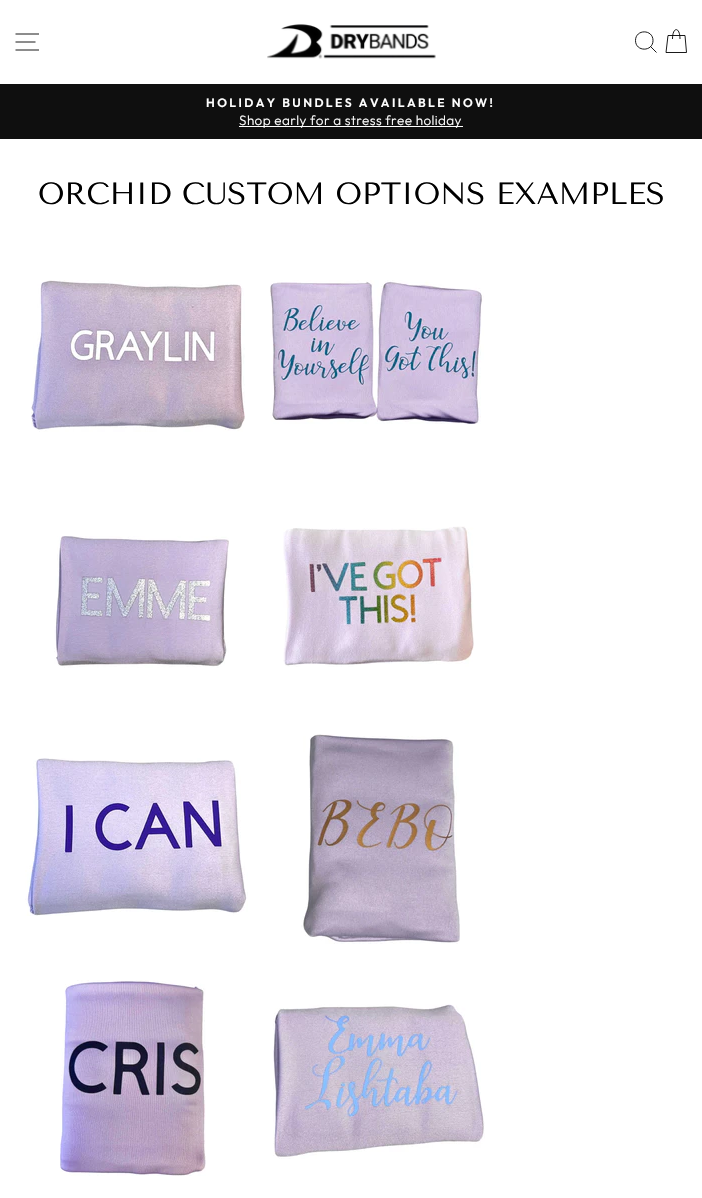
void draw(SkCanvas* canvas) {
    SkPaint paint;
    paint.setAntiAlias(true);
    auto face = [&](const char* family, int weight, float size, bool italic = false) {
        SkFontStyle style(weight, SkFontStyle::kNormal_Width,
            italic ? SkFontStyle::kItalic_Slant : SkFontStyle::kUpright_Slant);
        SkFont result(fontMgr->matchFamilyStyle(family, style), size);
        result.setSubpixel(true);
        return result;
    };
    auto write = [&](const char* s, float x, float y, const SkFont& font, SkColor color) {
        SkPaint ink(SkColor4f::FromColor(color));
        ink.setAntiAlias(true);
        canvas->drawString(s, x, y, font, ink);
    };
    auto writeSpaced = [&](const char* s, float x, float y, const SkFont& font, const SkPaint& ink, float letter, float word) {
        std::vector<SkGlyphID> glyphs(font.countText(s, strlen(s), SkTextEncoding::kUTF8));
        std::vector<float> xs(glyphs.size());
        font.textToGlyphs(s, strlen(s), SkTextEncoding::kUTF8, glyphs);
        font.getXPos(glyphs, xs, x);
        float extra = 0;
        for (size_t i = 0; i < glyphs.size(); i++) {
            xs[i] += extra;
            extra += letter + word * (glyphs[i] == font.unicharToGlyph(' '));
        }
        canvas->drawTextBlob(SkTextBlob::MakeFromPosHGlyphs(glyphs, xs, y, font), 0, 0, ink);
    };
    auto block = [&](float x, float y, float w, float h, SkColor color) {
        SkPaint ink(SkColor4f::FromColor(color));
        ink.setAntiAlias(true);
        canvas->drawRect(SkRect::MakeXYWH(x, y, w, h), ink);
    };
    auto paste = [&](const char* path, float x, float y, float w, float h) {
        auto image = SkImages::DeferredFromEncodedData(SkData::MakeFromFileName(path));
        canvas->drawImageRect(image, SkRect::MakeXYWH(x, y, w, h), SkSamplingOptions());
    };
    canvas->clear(SK_ColorWHITE);
    paint.setStyle(SkPaint::kStroke_Style);
    paint.setStrokeWidth(0.9f);
    paint.setColor(SK_ColorBLACK);
    canvas->drawPath(SkPathBuilder().moveTo(15.5f, 34).lineTo(39, 34).moveTo(15.5f, 42).lineTo(35.5f, 42).moveTo(15.5f, 50).lineTo(39, 50).detach(), paint);
    paste("pic1.png", 267, 24, 169, 35);
    canvas->drawPath(SkPathBuilder().moveTo(653, 40.5f).cubicTo(653, 52, 635.5f, 52, 635.5f, 40.5f).cubicTo(635.5f, 29, 653, 29, 653, 40.5f).close().moveTo(656.5f, 52.5f).lineTo(650.5f, 46.5f).moveTo(672.5f, 39).cubicTo(672.5f, 26.5f, 680, 26.5f, 680, 39).moveTo(668, 35.5f).lineTo(685, 35.5f).lineTo(686.5f, 52.5f).lineTo(666, 52.5f).close().detach(), paint);
    block(0, 84, 702, 55, SkColorSetRGB(15, 15, 15));
    auto kFont1 = face("Outfit", 600, 12.15f);
    paint.setStyle(SkPaint::kFill_Style);
    paint.setColor(SK_ColorWHITE);
    writeSpaced("HOLIDAY BUNDLES AVAILABLE NOW!", 206, 107, kFont1, paint, 2.4f, 0);
    block(239, 126, 224, 1, SK_ColorWHITE);
    auto kFont2 = face("Outfit", 300, 13.5f);
    writeSpaced("Shop early for a stress free holiday", 239, 125, kFont2, paint, 0.4f, 0);
    auto kFont3 = face("Tenor Sans", 400, 30.6f);
    write("ORCHID CUSTOM OPTIONS EXAMPLES", 38, 204, kFont3, SK_ColorBLACK);
    paste("pic2.png", 31, 280, 214, 152);
    paste("pic3.png", 270, 280, 214, 144);
    paste("pic4.png", 54, 536, 175, 132);
    paste("pic5.png", 283, 526, 191, 141);
    paste("pic6.png", 25, 758, 223, 158);
    paste("pic7.png", 301, 734, 159, 210);
    paste("pic8.png", 60, 980, 146, 196);
    paste("pic9.png", 273, 1004, 212, 155);
}
